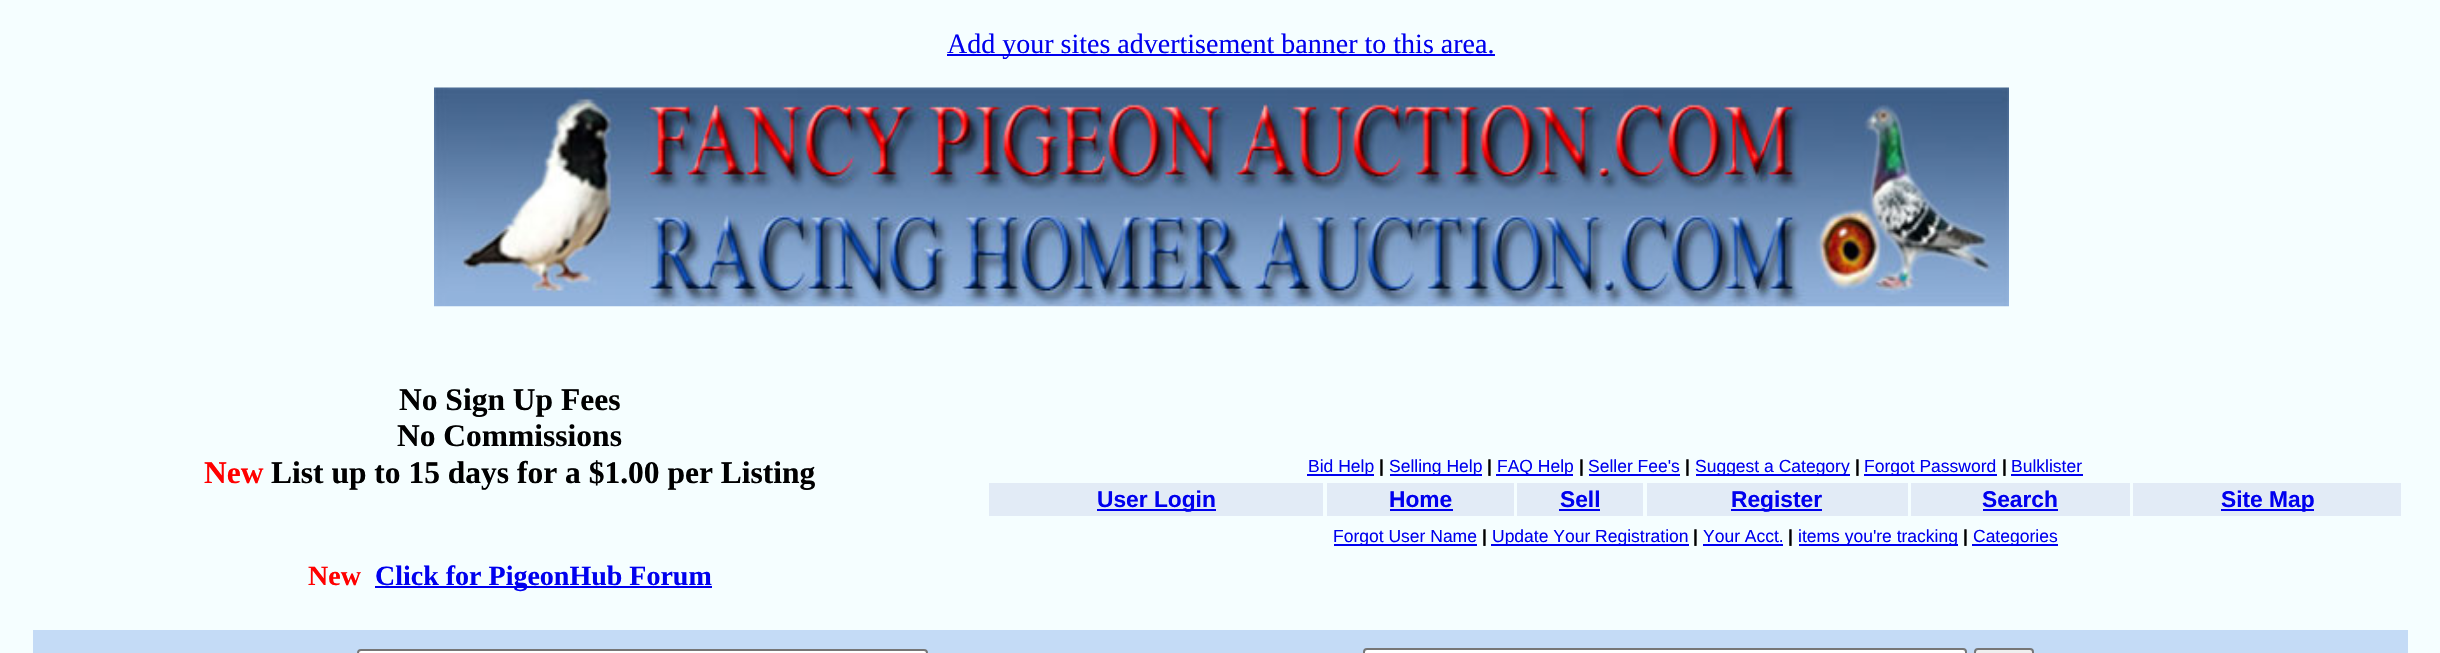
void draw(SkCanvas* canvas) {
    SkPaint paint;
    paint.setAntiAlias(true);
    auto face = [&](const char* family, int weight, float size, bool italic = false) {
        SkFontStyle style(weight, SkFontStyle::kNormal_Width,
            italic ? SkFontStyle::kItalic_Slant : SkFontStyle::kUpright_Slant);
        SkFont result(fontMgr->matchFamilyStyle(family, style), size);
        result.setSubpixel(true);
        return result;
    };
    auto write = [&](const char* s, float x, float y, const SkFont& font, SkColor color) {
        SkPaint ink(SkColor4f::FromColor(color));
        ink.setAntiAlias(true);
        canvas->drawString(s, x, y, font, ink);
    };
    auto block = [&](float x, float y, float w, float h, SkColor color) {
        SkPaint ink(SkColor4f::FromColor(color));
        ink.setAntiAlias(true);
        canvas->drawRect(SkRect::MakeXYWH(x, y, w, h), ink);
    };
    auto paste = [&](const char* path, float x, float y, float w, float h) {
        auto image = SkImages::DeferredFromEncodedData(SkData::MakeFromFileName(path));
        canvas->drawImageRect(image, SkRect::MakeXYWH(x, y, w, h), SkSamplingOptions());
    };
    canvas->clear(SkColorSetRGB(245, 254, 255));
    block(947, 54, 548, 2, SkColorSetRGB(0, 0, 238));
    auto kFont1 = face("Liberation Serif", 400, 28);
    write("Add your sites advertisement banner to this area.", 947, 53, kFont1, SkColorSetRGB(0, 0, 238));
    paste("pic1.png", 434, 87, 1575, 220);
    auto kFont2 = face("Liberation Serif", 700, 31.5f);
    write("No Sign Up Fees", 399, 410, kFont2, SK_ColorBLACK);
    write("No Commissions", 397, 446, kFont2, SK_ColorBLACK);
    write("New", 204, 483, kFont2, SkColorSetRGB(255, 0, 0));
    write("List up to 15 days for a $1.00 per Listing", 271, 483, kFont2, SK_ColorBLACK);
    auto kFont3 = face("Liberation Serif", 700, 28);
    write("New", 308, 585, kFont3, SkColorSetRGB(255, 0, 0));
    block(375, 586, 337, 2, SkColorSetRGB(0, 0, 238));
    write("Click for PigeonHub Forum", 375, 585, kFont3, SkColorSetRGB(0, 0, 238));
    block(1307, 474, 67, 2, SkColorSetRGB(0, 0, 238));
    auto kFont4 = face("Liberation Sans", 400, 17.5f);
    write("Bid Help", 1308, 472, kFont4, SkColorSetRGB(0, 0, 238));
    auto kFont5 = face("Liberation Sans", 700, 17.5f);
    write("|", 1379, 472, kFont5, SK_ColorBLACK);
    block(1390, 474, 92, 2, SkColorSetRGB(0, 0, 238));
    write("Selling Help", 1389, 472, kFont4, SkColorSetRGB(0, 0, 238));
    write("|", 1487, 472, kFont5, SK_ColorBLACK);
    block(1496, 474, 77, 2, SkColorSetRGB(0, 0, 238));
    write("FAQ Help", 1497, 472, kFont4, SkColorSetRGB(0, 0, 238));
    write("|", 1579, 472, kFont5, SK_ColorBLACK);
    write("Seller Fee's", 1588, 472, kFont4, SkColorSetRGB(0, 0, 238));
    block(1589, 474, 91, 2, SkColorSetRGB(0, 0, 238));
    write("|", 1685, 472, kFont5, SK_ColorBLACK);
    block(1696, 474, 154, 2, SkColorSetRGB(0, 0, 238));
    write("Suggest a Category", 1695, 472, kFont4, SkColorSetRGB(0, 0, 238));
    write("|", 1855, 472, kFont5, SK_ColorBLACK);
    block(1864, 474, 133, 2, SkColorSetRGB(0, 0, 238));
    write("Forgot Password", 1864, 472, kFont4, SkColorSetRGB(0, 0, 238));
    write("|", 2002, 472, kFont5, SK_ColorBLACK);
    write("Bulklister", 2011, 472, kFont4, SkColorSetRGB(0, 0, 238));
    block(2011, 474, 72, 2, SkColorSetRGB(0, 0, 238));
    block(989, 483, 334, 33, SkColorSetRGB(226, 235, 246));
    block(1097, 509, 119, 2, SkColorSetRGB(0, 0, 238));
    auto kFont6 = face("Liberation Sans", 700, 22.75f);
    write("User Login", 1097, 507, kFont6, SkColorSetRGB(0, 0, 238));
    block(1327, 483, 187, 33, SkColorSetRGB(226, 235, 246));
    write("Home", 1389, 507, kFont6, SkColorSetRGB(0, 0, 238));
    block(1390, 509, 63, 2, SkColorSetRGB(0, 0, 238));
    block(1517, 483, 126, 33, SkColorSetRGB(226, 235, 246));
    write("Sell", 1560, 507, kFont6, SkColorSetRGB(0, 0, 238));
    block(1559, 509, 41, 2, SkColorSetRGB(0, 0, 238));
    block(1647, 483, 261, 33, SkColorSetRGB(226, 235, 246));
    block(1731, 509, 91, 2, SkColorSetRGB(0, 0, 238));
    write("Register", 1731, 507, kFont6, SkColorSetRGB(0, 0, 238));
    block(1911, 483, 219, 33, SkColorSetRGB(226, 235, 246));
    write("Search", 1982, 507, kFont6, SkColorSetRGB(0, 0, 238));
    block(1983, 509, 75, 2, SkColorSetRGB(0, 0, 238));
    block(2133, 483, 268, 33, SkColorSetRGB(226, 235, 246));
    block(2221, 509, 93, 2, SkColorSetRGB(0, 0, 238));
    write("Site Map", 2221, 507, kFont6, SkColorSetRGB(0, 0, 238));
    block(1334, 544, 143, 2, SkColorSetRGB(0, 0, 238));
    write("Forgot User Name", 1333, 542, kFont4, SkColorSetRGB(0, 0, 238));
    write("|", 1482, 542, kFont5, SK_ColorBLACK);
    block(1491, 544, 198, 2, SkColorSetRGB(0, 0, 238));
    write("Update Your Registration", 1492, 542, kFont4, SkColorSetRGB(0, 0, 238));
    write("|", 1693, 542, kFont5, SK_ColorBLACK);
    write("Your Acct.", 1703, 542, kFont4, SkColorSetRGB(0, 0, 238));
    block(1703, 544, 80, 2, SkColorSetRGB(0, 0, 238));
    write("|", 1788, 542, kFont5, SK_ColorBLACK);
    block(1799, 544, 159, 2, SkColorSetRGB(0, 0, 238));
    write("items you're tracking", 1798, 542, kFont4, SkColorSetRGB(0, 0, 238));
    write("|", 1963, 542, kFont5, SK_ColorBLACK);
    block(1972, 544, 86, 2, SkColorSetRGB(0, 0, 238));
    write("Categories", 1973, 542, kFont4, SkColorSetRGB(0, 0, 238));
    block(33, 630, 2375, 23, SkColorSetRGB(196, 219, 246));
    paint.setColor(SK_ColorWHITE);
    canvas->drawRoundRect(SkRect::MakeXYWH(358, 650, 569, 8), 3, 3, paint);
    paint.setStyle(SkPaint::kStroke_Style);
    paint.setStrokeWidth(2);
    paint.setColor(SkColorSetRGB(118, 118, 118));
    canvas->drawRoundRect(SkRect::MakeXYWH(358, 650, 569, 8), 3, 3, paint);
    paint.setStyle(SkPaint::kFill_Style);
    paint.setColor(SK_ColorWHITE);
    canvas->drawRoundRect(SkRect::MakeXYWH(1364, 649, 602, 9), 3, 3, paint);
    paint.setStyle(SkPaint::kStroke_Style);
    paint.setColor(SkColorSetRGB(118, 118, 118));
    canvas->drawRoundRect(SkRect::MakeXYWH(1364, 649, 602, 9), 3, 3, paint);
    paint.setStyle(SkPaint::kFill_Style);
    paint.setColor(SkColorSetRGB(239, 239, 239));
    canvas->drawRoundRect(SkRect::MakeXYWH(1975, 649, 58, 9), 3, 3, paint);
    paint.setStyle(SkPaint::kStroke_Style);
    paint.setColor(SkColorSetRGB(118, 118, 118));
    canvas->drawRoundRect(SkRect::MakeXYWH(1975, 649, 58, 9), 3, 3, paint);
}
